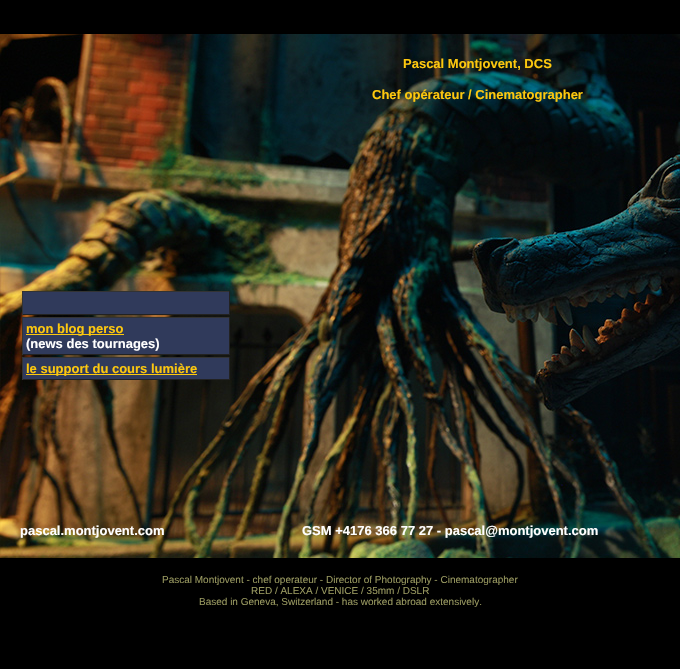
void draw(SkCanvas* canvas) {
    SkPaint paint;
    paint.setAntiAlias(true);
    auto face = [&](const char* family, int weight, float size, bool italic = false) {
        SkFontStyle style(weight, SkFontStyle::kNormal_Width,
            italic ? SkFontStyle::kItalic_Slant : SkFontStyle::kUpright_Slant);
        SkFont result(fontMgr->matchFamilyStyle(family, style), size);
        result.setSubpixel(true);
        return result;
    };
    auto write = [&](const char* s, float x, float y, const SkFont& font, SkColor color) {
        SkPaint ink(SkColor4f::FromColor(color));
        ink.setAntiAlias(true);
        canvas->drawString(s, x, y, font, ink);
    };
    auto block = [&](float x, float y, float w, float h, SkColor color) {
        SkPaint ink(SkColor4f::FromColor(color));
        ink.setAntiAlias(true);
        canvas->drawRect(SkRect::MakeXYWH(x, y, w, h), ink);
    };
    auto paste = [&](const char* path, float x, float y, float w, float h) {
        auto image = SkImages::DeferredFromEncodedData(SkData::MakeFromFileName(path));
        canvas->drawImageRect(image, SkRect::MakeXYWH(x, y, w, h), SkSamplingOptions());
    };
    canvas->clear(SK_ColorBLACK);
    paste("pic1.png", 0, 34, 680, 524);
    auto kFont1 = face("Liberation Sans", 700, 13);
    write("Pascal Montjovent, DCS", 403, 68, kFont1, SkColorSetRGB(253, 200, 14));
    write("Chef opérateur / Cinematographer", 372, 99, kFont1, SkColorSetRGB(253, 200, 14));
    block(23, 292, 206, 22, SkColorSetRGB(48, 58, 91));
    block(22, 291, 208, 1, SkColorSetRGB(51, 51, 51));
    block(229, 291, 1, 24, SkColorSetRGB(34, 34, 34));
    block(22, 314, 208, 1, SkColorSetRGB(34, 34, 34));
    block(22, 291, 1, 24, SkColorSetRGB(51, 51, 51));
    block(23, 318, 206, 36, SkColorSetRGB(48, 58, 91));
    block(22, 317, 208, 1, SkColorSetRGB(51, 51, 51));
    block(229, 317, 1, 38, SkColorSetRGB(34, 34, 34));
    block(22, 354, 208, 1, SkColorSetRGB(34, 34, 34));
    block(22, 317, 1, 38, SkColorSetRGB(51, 51, 51));
    block(26, 334, 98, 1, SkColorSetRGB(253, 200, 14));
    write("mon blog perso", 26, 333, kFont1, SkColorSetRGB(253, 200, 14));
    write("(news des tournages)", 26, 348, kFont1, SK_ColorWHITE);
    block(23, 358, 206, 21, SkColorSetRGB(48, 58, 91));
    block(22, 357, 208, 1, SkColorSetRGB(51, 51, 51));
    block(229, 357, 1, 23, SkColorSetRGB(34, 34, 34));
    block(22, 379, 208, 1, SkColorSetRGB(34, 34, 34));
    block(22, 357, 1, 23, SkColorSetRGB(51, 51, 51));
    block(26, 374, 171, 1, SkColorSetRGB(253, 200, 14));
    write("le support du cours lumière", 26, 373, kFont1, SkColorSetRGB(253, 200, 14));
    write("pascal.montjovent.com", 20, 535, kFont1, SK_ColorWHITE);
    write("GSM +4176 366 77 27 - pascal@montjovent.com", 302, 535, kFont1, SK_ColorWHITE);
    auto kFont2 = face("Liberation Sans", 400, 10);
    write("Pascal Montjovent - chef operateur - Director of Photography - Cinematographer", 162, 583, kFont2, SkColorSetRGB(153, 153, 96));
    write("RED / ALEXA / VENICE / 35mm / DSLR", 251, 594, kFont2, SkColorSetRGB(153, 153, 96));
    write("Based in Geneva, Switzerland - has worked abroad extensively.", 199, 605, kFont2, SkColorSetRGB(153, 153, 96));
}
